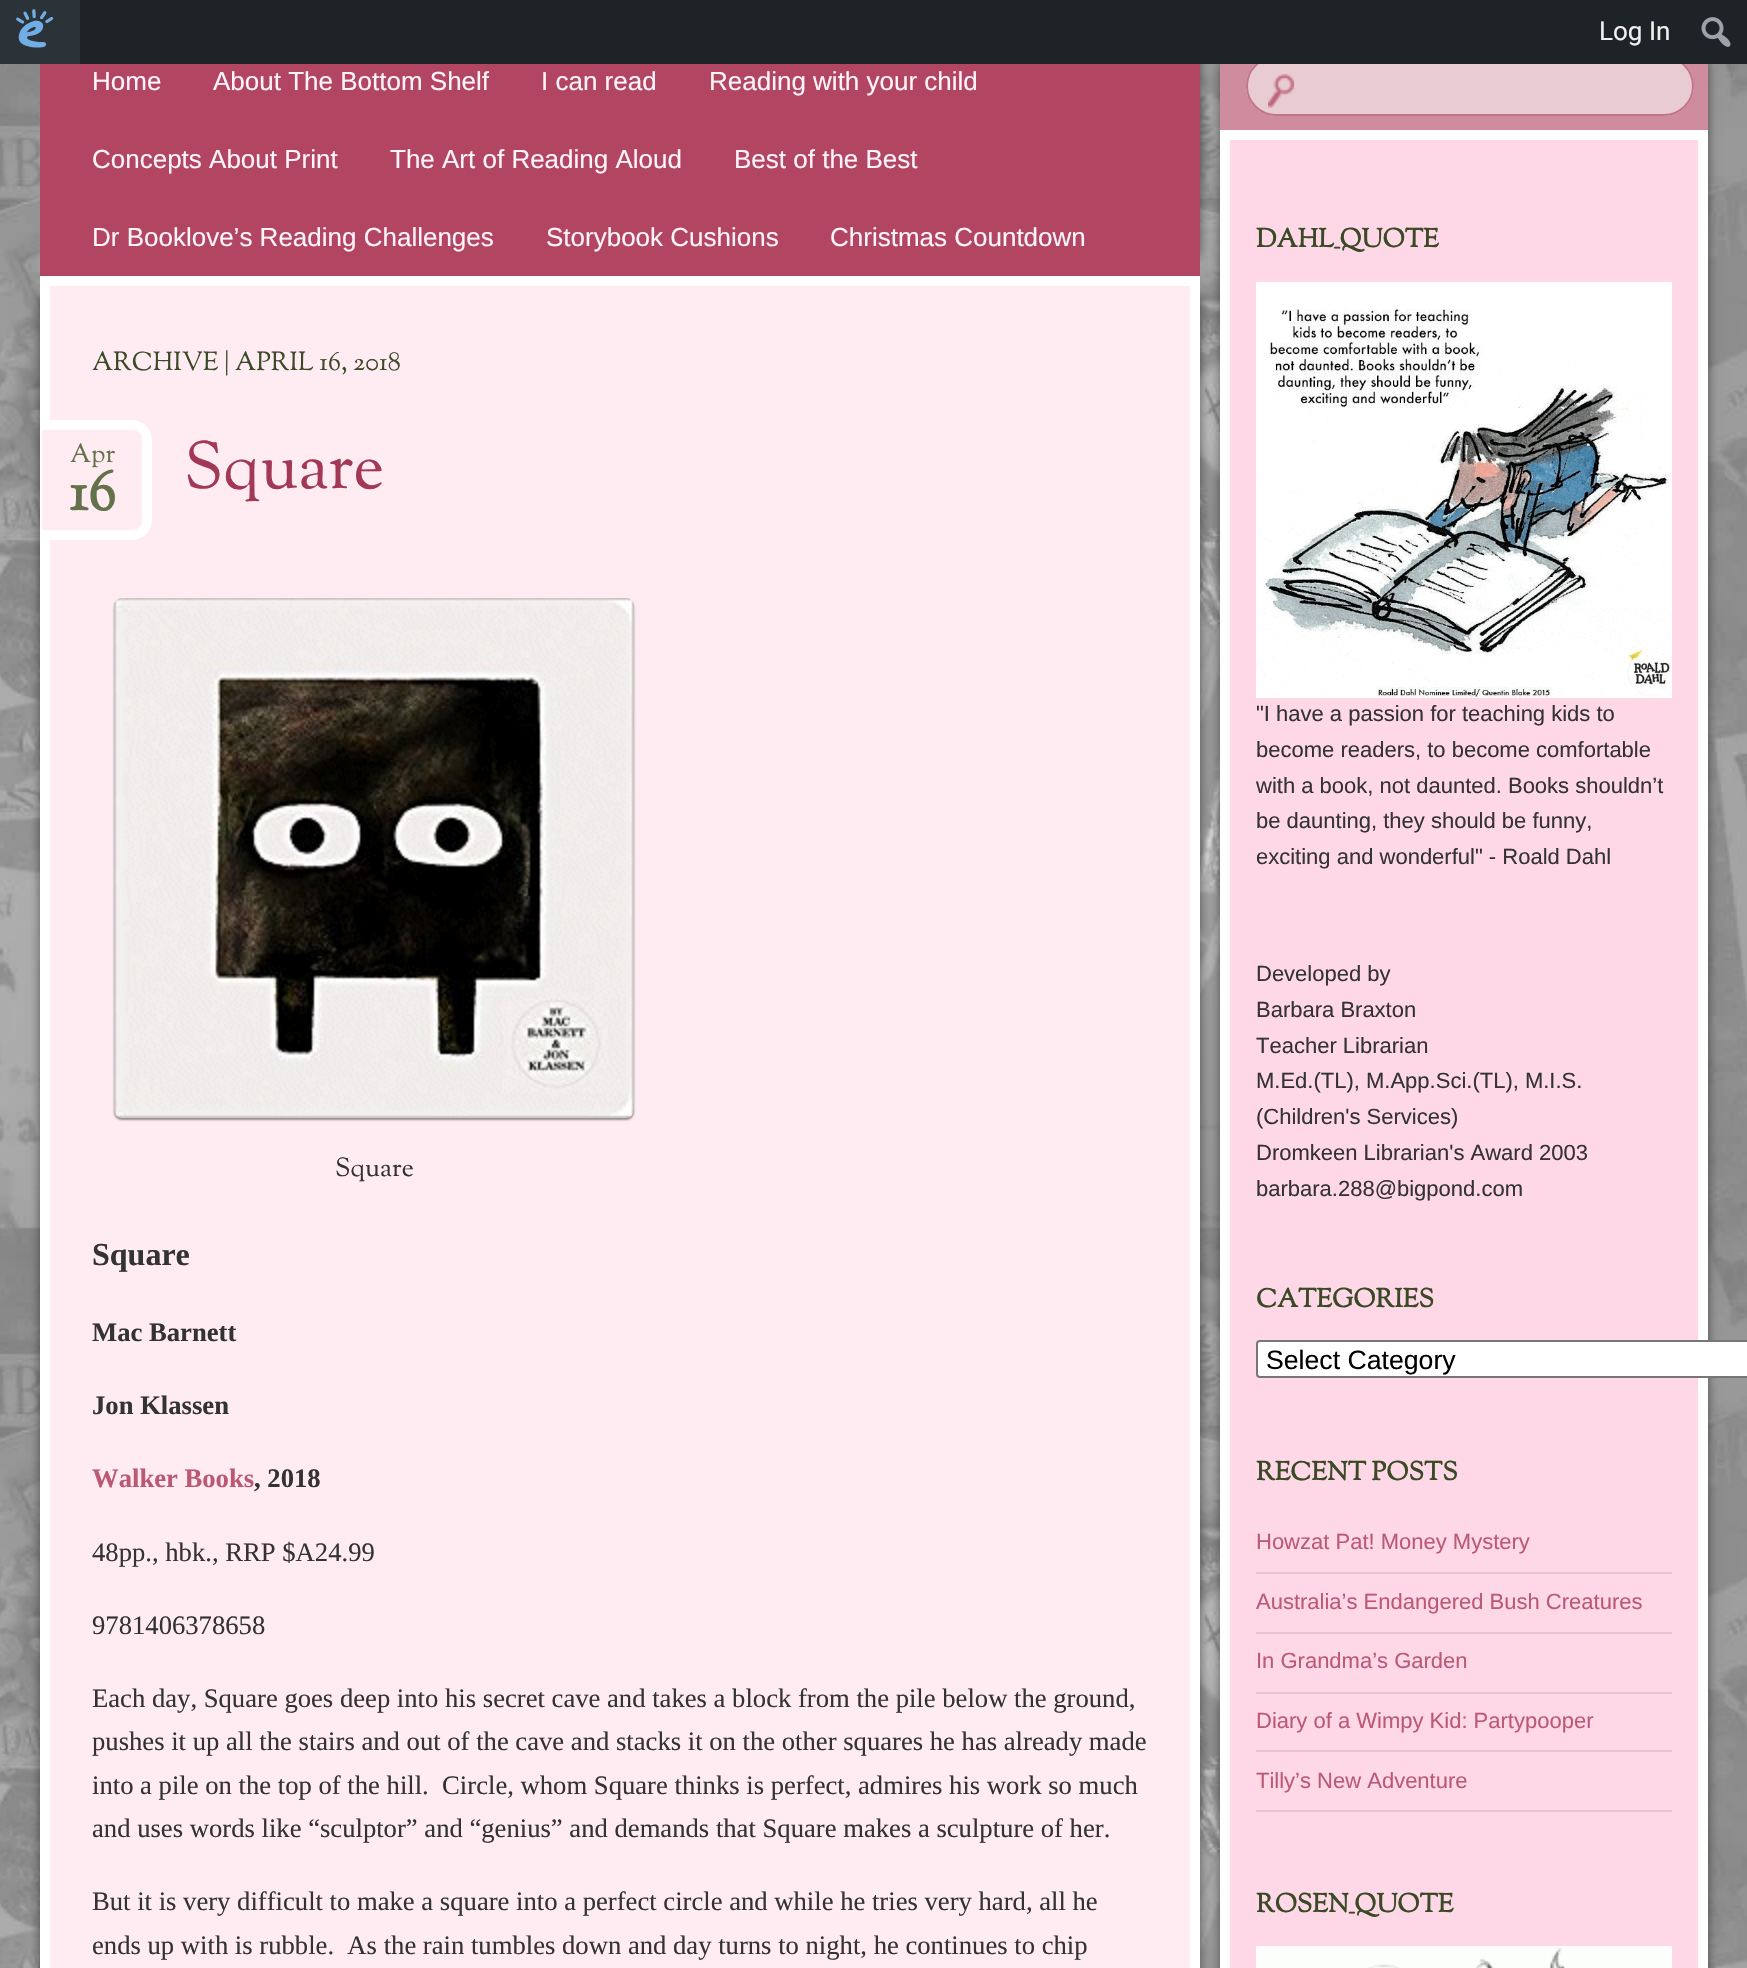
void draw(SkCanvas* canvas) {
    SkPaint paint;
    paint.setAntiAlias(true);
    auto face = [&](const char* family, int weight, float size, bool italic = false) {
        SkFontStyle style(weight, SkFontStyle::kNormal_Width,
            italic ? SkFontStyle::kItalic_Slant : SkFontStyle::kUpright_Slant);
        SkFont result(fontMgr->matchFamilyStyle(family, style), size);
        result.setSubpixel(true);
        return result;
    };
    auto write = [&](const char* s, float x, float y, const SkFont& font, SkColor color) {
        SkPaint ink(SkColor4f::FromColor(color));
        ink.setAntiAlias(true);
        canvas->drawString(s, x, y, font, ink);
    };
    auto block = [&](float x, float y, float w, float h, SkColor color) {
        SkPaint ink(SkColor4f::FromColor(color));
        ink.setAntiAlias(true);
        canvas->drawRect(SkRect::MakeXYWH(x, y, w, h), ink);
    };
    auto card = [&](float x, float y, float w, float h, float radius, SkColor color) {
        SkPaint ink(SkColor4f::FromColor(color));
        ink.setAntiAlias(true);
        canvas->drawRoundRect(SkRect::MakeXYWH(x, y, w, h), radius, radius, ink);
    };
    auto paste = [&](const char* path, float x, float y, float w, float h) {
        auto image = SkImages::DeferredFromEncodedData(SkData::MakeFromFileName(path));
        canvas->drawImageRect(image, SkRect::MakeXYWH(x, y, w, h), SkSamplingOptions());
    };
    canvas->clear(SK_ColorWHITE);
    paste("pic1.png", 0, 64, 1747, 1904);
    paint.setColor(SkColorSetARGB(128, 0, 0, 0));
    paint.setMaskFilter(SkMaskFilter::MakeBlur(kNormal_SkBlurStyle, 5));
    canvas->drawRect(SkRect::MakeXYWH(60, 42, 1140, 214), paint);
    paint.setMaskFilter(nullptr);
    paint.setMaskFilter(SkMaskFilter::MakeBlur(kNormal_SkBlurStyle, 5));
    canvas->drawRect(SkRect::MakeXYWH(1220, 62, 468, 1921), paint);
    paint.setMaskFilter(nullptr);
    paint.setMaskFilter(SkMaskFilter::MakeBlur(kNormal_SkBlurStyle, 5));
    canvas->drawRect(SkRect::MakeXYWH(1240, 62, 468, 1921), paint);
    paint.setMaskFilter(nullptr);
    block(1220, 64, 488, 66, SkColorSetRGB(207, 140, 158));
    card(1246, 56, 448, 60, 30, SkColorSetRGB(233, 203, 211));
    paste("pic5.png", 1268, 74, 26, 34);
    paint.setStyle(SkPaint::kStroke_Style);
    paint.setStrokeWidth(2);
    paint.setColor(SkColorSetRGB(192, 117, 139));
    canvas->drawRoundRect(SkRect::MakeXYWH(1247, 57, 446, 58), 29, 29, paint);
    block(80, 0, 1667, 64, SkColorSetRGB(29, 35, 39));
    block(0, 0, 80, 64, SkColorSetRGB(44, 51, 56));
    paste("pic2.png", 16, 9, 38, 39);
    auto kFont1 = face("Roboto", 400, 26);
    write("Log In", 1599, 40, kFont1, SkColorSetRGB(240, 240, 241));
    paste("pic3.png", 1701, 17, 30, 30);
    block(40, 64, 1160, 212, SkColorSetRGB(177, 69, 98));
    auto kFont2 = face("Liberation Sans", 400, 26);
    write("Home", 92, 90, kFont2, SkColorSetRGB(255, 244, 249));
    write("About The Bottom Shelf", 213, 90, kFont2, SkColorSetRGB(255, 244, 249));
    write("I can read", 541, 90, kFont2, SkColorSetRGB(255, 244, 249));
    write("Reading with your child", 709, 90, kFont2, SkColorSetRGB(255, 244, 249));
    write("Concepts About Print", 92, 168, kFont2, SkColorSetRGB(255, 244, 249));
    write("The Art of Reading Aloud", 390, 168, kFont2, SkColorSetRGB(255, 244, 249));
    write("Best of the Best", 734, 168, kFont2, SkColorSetRGB(255, 244, 249));
    write("Dr Booklove’s Reading Challenges", 92, 246, kFont2, SkColorSetRGB(255, 244, 249));
    write("Storybook Cushions", 546, 246, kFont2, SkColorSetRGB(255, 244, 249));
    write("Christmas Countdown", 830, 246, kFont2, SkColorSetRGB(255, 244, 249));
    paint.setStyle(SkPaint::kFill_Style);
    paint.setColor(SkColorSetARGB(128, 0, 0, 0));
    paint.setMaskFilter(SkMaskFilter::MakeBlur(kNormal_SkBlurStyle, 5));
    canvas->drawRect(SkRect::MakeXYWH(40, 296, 1140, 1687), paint);
    paint.setMaskFilter(nullptr);
    paint.setMaskFilter(SkMaskFilter::MakeBlur(kNormal_SkBlurStyle, 5));
    canvas->drawRect(SkRect::MakeXYWH(60, 296, 1140, 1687), paint);
    paint.setMaskFilter(nullptr);
    paint.setColor(SkColorSetRGB(255, 235, 242));
    canvas->drawRect(SkRect::MakeXYWH(45, 281, 1150, 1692), paint);
    paint.setStyle(SkPaint::kStroke_Style);
    paint.setStrokeWidth(10);
    paint.setColor(SK_ColorWHITE);
    canvas->drawRect(SkRect::MakeXYWH(45, 281, 1150, 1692), paint);
    auto kFont3 = face("Sorts Mill Goudy", 400, 26);
    write("ARCHIVE | APRIL 16, 2018", 92, 370, kFont3, SkColorSetRGB(59, 74, 38));
    paint.setStyle(SkPaint::kFill_Style);
    paint.setColor(SkColorSetRGB(255, 235, 242));
    canvas->drawPath(SkPathBuilder().moveTo(42, 430).lineTo(132, 430).cubicTo(137.5f, 430, 142, 434.5f, 142, 440).lineTo(142, 520).cubicTo(142, 525.5f, 137.5f, 530, 132, 530).lineTo(42, 530).close().detach(), paint);
    paint.setColor(SK_ColorWHITE);
    canvas->drawPath(SkPathBuilder(SkPathFillType::kEvenOdd).moveTo(42, 420).lineTo(132, 420).cubicTo(143, 420, 152, 429, 152, 440).lineTo(152, 520).cubicTo(152, 531, 143, 540, 132, 540).lineTo(42, 540).close().moveTo(42, 430).lineTo(132, 430).cubicTo(138, 430, 142, 434, 142, 440).lineTo(142, 520).cubicTo(142, 526, 138, 530, 132, 530).lineTo(42, 530).close().detach(), paint);
    write("Apr", 70, 462, kFont3, SkColorSetRGB(99, 114, 75));
    auto kFont4 = face("Sorts Mill Goudy", 700, 56);
    write("16", 69, 510, kFont4, SkColorSetRGB(99, 114, 75));
    auto kFont5 = face("Sorts Mill Goudy", 400, 66);
    write("Square", 184, 488, kFont5, SkColorSetRGB(162, 56, 85));
    paint.setColor(SkColorSetARGB(102, 0, 0, 0));
    paint.setMaskFilter(SkMaskFilter::MakeBlur(kNormal_SkBlurStyle, 1));
    canvas->drawRoundRect(SkRect::MakeXYWH(114, 600, 520, 520), 8, 8, paint);
    paint.setMaskFilter(nullptr);
    paste("pic4.png", 114, 598, 520, 520);
    write("Square", 335, 1176, kFont3, SkColorSetRGB(51, 51, 51));
    auto kFont6 = face("Liberation Serif", 700, 32);
    write("Square", 92, 1265, kFont6, SkColorSetRGB(51, 51, 51));
    auto kFont7 = face("Liberation Serif", 700, 26.65f);
    write("Mac Barnett", 92, 1341, kFont7, SkColorSetRGB(51, 51, 51));
    write("Jon Klassen", 92, 1414, kFont7, SkColorSetRGB(51, 51, 51));
    write("Walker Books", 92, 1487, kFont7, SkColorSetRGB(187, 89, 116));
    write(", 2018", 254, 1487, kFont7, SkColorSetRGB(51, 51, 51));
    auto kFont8 = face("Liberation Serif", 400, 26.65f);
    write("48pp., hbk., RRP $A24.99", 92, 1561, kFont8, SkColorSetRGB(51, 51, 51));
    write("9781406378658", 92, 1634, kFont8, SkColorSetRGB(51, 51, 51));
    write("Each day, Square goes deep into his secret cave and takes a block from the pile below the ground,", 92, 1707, kFont8, SkColorSetRGB(51, 51, 51));
    write("pushes it up all the stairs and out of the cave and stacks it on the other squares he has already made", 92, 1750, kFont8, SkColorSetRGB(51, 51, 51));
    write("into a pile on the top of the hill.  Circle, whom Square thinks is perfect, admires his work so much", 92, 1794, kFont8, SkColorSetRGB(51, 51, 51));
    write("and uses words like “sculptor” and “genius” and demands that Square makes a sculpture of her.", 92, 1837, kFont8, SkColorSetRGB(51, 51, 51));
    write("But it is very difficult to make a square into a perfect circle and while he tries very hard, all he", 92, 1910, kFont8, SkColorSetRGB(51, 51, 51));
    write("ends up with is rubble.  As the rain tumbles down and day turns to night, he continues to chip", 92, 1954, kFont8, SkColorSetRGB(51, 51, 51));
    paint.setColor(SkColorSetRGB(255, 216, 232));
    canvas->drawRect(SkRect::MakeXYWH(1225, 135, 478, 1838), paint);
    paint.setStyle(SkPaint::kStroke_Style);
    paint.setColor(SK_ColorWHITE);
    canvas->drawRect(SkRect::MakeXYWH(1225, 135, 478, 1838), paint);
    auto kFont9 = face("Sorts Mill Goudy", 700, 26);
    write("DAHL_QUOTE", 1256, 247, kFont9, SkColorSetRGB(59, 74, 38));
    paste("pic6.png", 1256, 282, 416, 416);
    auto kFont10 = face("Liberation Sans", 400, 22);
    write("\"I have a passion for teaching kids to", 1256, 721, kFont10, SkColorSetRGB(51, 51, 51));
    write("become readers, to become comfortable", 1256, 757, kFont10, SkColorSetRGB(51, 51, 51));
    write("with a book, not daunted. Books shouldn’t", 1256, 793, kFont10, SkColorSetRGB(51, 51, 51));
    write("be daunting, they should be funny,", 1256, 828, kFont10, SkColorSetRGB(51, 51, 51));
    write("exciting and wonderful\" - Roald Dahl", 1256, 864, kFont10, SkColorSetRGB(51, 51, 51));
    write("Developed by", 1256, 981, kFont10, SkColorSetRGB(51, 51, 51));
    write("Barbara Braxton", 1256, 1017, kFont10, SkColorSetRGB(51, 51, 51));
    write("Teacher Librarian", 1256, 1053, kFont10, SkColorSetRGB(51, 51, 51));
    write("M.Ed.(TL), M.App.Sci.(TL), M.I.S.", 1256, 1088, kFont10, SkColorSetRGB(51, 51, 51));
    write("(Children's Services)", 1256, 1124, kFont10, SkColorSetRGB(51, 51, 51));
    write("Dromkeen Librarian's Award 2003", 1256, 1160, kFont10, SkColorSetRGB(51, 51, 51));
    write("barbara.288@bigpond.com", 1256, 1196, kFont10, SkColorSetRGB(51, 51, 51));
    write("CATEGORIES", 1256, 1307, kFont9, SkColorSetRGB(59, 74, 38));
    paint.setStyle(SkPaint::kFill_Style);
    canvas->drawRoundRect(SkRect::MakeXYWH(1257, 1341, 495, 36), 3, 3, paint);
    paint.setStyle(SkPaint::kStroke_Style);
    paint.setStrokeWidth(2);
    paint.setColor(SkColorSetRGB(118, 118, 118));
    canvas->drawRoundRect(SkRect::MakeXYWH(1257, 1341, 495, 36), 3, 3, paint);
    auto kFont11 = face("Liberation Sans", 400, 26.65f);
    write("Select Category", 1266, 1369, kFont11, SK_ColorBLACK);
    write("RECENT POSTS", 1256, 1480, kFont9, SkColorSetRGB(59, 74, 38));
    block(1256, 1572, 416, 2, SkColorSetRGB(233, 194, 210));
    write("Howzat Pat! Money Mystery", 1256, 1549, kFont10, SkColorSetRGB(187, 89, 116));
    block(1256, 1632, 416, 2, SkColorSetRGB(233, 194, 210));
    write("Australia’s Endangered Bush Creatures", 1256, 1609, kFont10, SkColorSetRGB(187, 89, 116));
    block(1256, 1692, 416, 2, SkColorSetRGB(233, 194, 210));
    write("In Grandma’s Garden", 1256, 1668, kFont10, SkColorSetRGB(187, 89, 116));
    block(1256, 1750, 416, 2, SkColorSetRGB(233, 194, 210));
    write("Diary of a Wimpy Kid: Partypooper", 1256, 1728, kFont10, SkColorSetRGB(187, 89, 116));
    block(1256, 1810, 416, 2, SkColorSetRGB(233, 194, 210));
    write("Tilly’s New Adventure", 1256, 1788, kFont10, SkColorSetRGB(187, 89, 116));
    write("ROSEN_QUOTE", 1256, 1912, kFont9, SkColorSetRGB(59, 74, 38));
    paste("pic7.png", 1256, 1946, 416, 22);
}
